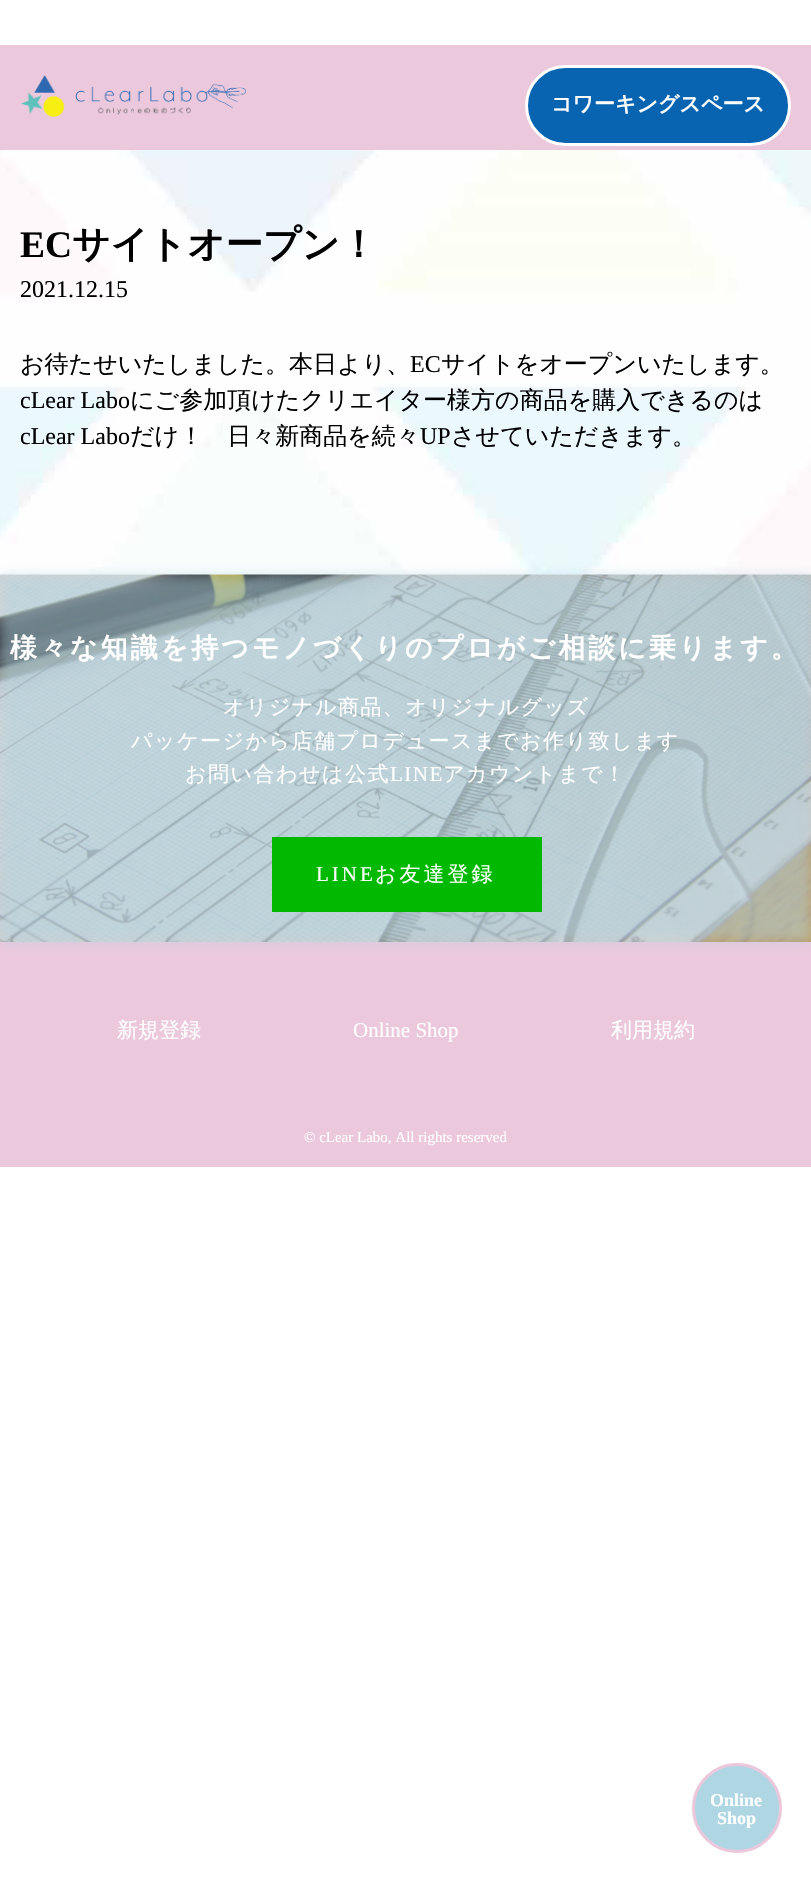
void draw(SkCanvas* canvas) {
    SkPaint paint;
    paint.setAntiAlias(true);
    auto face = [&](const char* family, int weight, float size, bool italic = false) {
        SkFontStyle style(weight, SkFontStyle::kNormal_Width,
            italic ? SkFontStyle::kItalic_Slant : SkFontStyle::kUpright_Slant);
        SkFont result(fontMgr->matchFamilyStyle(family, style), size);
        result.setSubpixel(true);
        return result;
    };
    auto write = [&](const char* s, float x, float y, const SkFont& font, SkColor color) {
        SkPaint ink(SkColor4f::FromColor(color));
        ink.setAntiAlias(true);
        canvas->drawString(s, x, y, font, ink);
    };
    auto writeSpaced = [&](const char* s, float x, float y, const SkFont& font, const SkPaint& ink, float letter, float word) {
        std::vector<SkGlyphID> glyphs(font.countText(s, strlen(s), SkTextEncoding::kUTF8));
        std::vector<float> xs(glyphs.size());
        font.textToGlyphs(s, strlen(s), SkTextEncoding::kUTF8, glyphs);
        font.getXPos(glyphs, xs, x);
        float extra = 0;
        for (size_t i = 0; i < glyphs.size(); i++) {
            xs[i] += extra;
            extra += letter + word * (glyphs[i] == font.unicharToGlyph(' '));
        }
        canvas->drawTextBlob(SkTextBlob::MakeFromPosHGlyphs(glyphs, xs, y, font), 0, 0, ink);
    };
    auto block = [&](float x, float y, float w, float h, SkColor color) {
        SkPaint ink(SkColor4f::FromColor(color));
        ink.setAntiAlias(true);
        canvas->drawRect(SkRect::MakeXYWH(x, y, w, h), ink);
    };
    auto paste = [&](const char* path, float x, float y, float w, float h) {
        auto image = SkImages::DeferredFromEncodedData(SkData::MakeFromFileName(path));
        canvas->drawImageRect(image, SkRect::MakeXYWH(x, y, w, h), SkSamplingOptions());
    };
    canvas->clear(SK_ColorWHITE);
    block(0, 45, 811, 105, SkColorSetRGB(235, 200, 220));
    paste("pic1.png", 21, 75, 225, 42);
    paint.setColor(SkColorSetRGB(8, 100, 177));
    canvas->drawRoundRect(SkRect::MakeXYWH(526.5f, 66.5f, 263, 78), 39, 39, paint);
    paint.setStyle(SkPaint::kStroke_Style);
    paint.setStrokeWidth(3);
    paint.setColor(SK_ColorWHITE);
    canvas->drawRoundRect(SkRect::MakeXYWH(526.5f, 66.5f, 263, 78), 39, 39, paint);
    auto kFont1 = face("WenQuanYi Zen Hei", 700, 21);
    write("コワーキングスペース", 551, 111, kFont1, SK_ColorWHITE);
    paint.setStyle(SkPaint::kFill_Style);
    paint.setColor(SkColorSetRGB(175, 214, 227));
    canvas->drawCircle(737, 1808, 43.5f, paint);
    paint.setStyle(SkPaint::kStroke_Style);
    paint.setColor(SkColorSetRGB(235, 200, 220));
    canvas->drawCircle(737, 1808, 43.5f, paint);
    auto kFont2 = face("Liberation Serif", 700, 18);
    write("Online", 710, 1806, kFont2, SK_ColorWHITE);
    write("Shop", 717, 1824, kFont2, SK_ColorWHITE);
    paste("pic2.png", 0, 150, 811, 425);
    auto kFont3 = face("Liberation Serif", 700, 37.5f);
    write("EC", 20, 257, kFont3, SK_ColorBLACK);
    auto kFont4 = face("WenQuanYi Zen Hei", 700, 37.5f);
    write("サイトオープン！", 72, 257, kFont4, SK_ColorBLACK);
    auto kFont5 = face("Liberation Serif", 400, 24);
    write("2021.12.15", 20, 297, kFont5, SK_ColorBLACK);
    auto kFont6 = face("WenQuanYi Zen Hei", 500, 24);
    write("お待たせいたしました。本日より、", 20, 372, kFont6, SK_ColorBLACK);
    write("EC", 410, 372, kFont5, SK_ColorBLACK);
    write("サイトをオープンいたします。", 441, 372, kFont6, SK_ColorBLACK);
    write("cLear Labo", 20, 408, kFont5, SK_ColorBLACK);
    write("にご参加頂けたクリエイター様方の商品を購入できるのは", 130, 408, kFont6, SK_ColorBLACK);
    write("cLear Labo", 20, 444, kFont5, SK_ColorBLACK);
    write("だけ！　日々新商品を続々", 130, 444, kFont6, SK_ColorBLACK);
    write("UP", 420, 444, kFont5, SK_ColorBLACK);
    write("させていただきます。", 451, 444, kFont6, SK_ColorBLACK);
    paste("pic3.png", 0, 574, 811, 368);
    block(0, 942, 811, 225, SkColorSetRGB(235, 200, 220));
    paint.setStyle(SkPaint::kFill_Style);
    paint.setColor(SkColorSetARGB(128, 175, 214, 227));
    paint.setMaskFilter(SkMaskFilter::MakeBlur(kNormal_SkBlurStyle, 6));
    canvas->drawRect(SkRect::MakeXYWH(0, 575, 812, 367), paint);
    paint.setMaskFilter(nullptr);
    auto kFont7 = face("WenQuanYi Zen Hei", 700, 27);
    paint.setColor(SK_ColorWHITE);
    writeSpaced("様々な知識を持つモノづくりのプロがご相談に乗ります。", 10, 657, kFont7, paint, 3, 0);
    auto kFont8 = face("WenQuanYi Zen Hei", 500, 21);
    writeSpaced("オリジナル商品、オリジナルグッズ", 223, 714, kFont8, paint, 1.5f, 0);
    writeSpaced("パッケージから店舗プロデュースまでお作り致します", 131, 748, kFont8, paint, 1.5f, 0);
    writeSpaced("お問い合わせは公式", 185, 781, kFont8, paint, 1.5f, 0);
    auto kFont9 = face("Liberation Serif", 400, 21);
    writeSpaced("LINE", 390, 781, kFont9, paint, 1.5f, 0);
    writeSpaced("アカウントまで！", 443, 781, kFont8, paint, 1.5f, 0);
    block(272, 837, 270, 75, SkColorSetRGB(0, 185, 0));
    writeSpaced("LINE", 316, 881, kFont9, paint, 3, 0);
    writeSpaced("お友達登録", 375, 881, kFont8, paint, 3, 0);
    write("新規登録", 117, 1037, kFont8, SK_ColorWHITE);
    write("Online Shop", 353, 1037, kFont9, SK_ColorWHITE);
    write("利用規約", 611, 1037, kFont8, SK_ColorWHITE);
    auto kFont10 = face("Liberation Serif", 400, 15);
    write("© cLear Labo, All rights reserved", 304, 1142, kFont10, SK_ColorWHITE);
}
